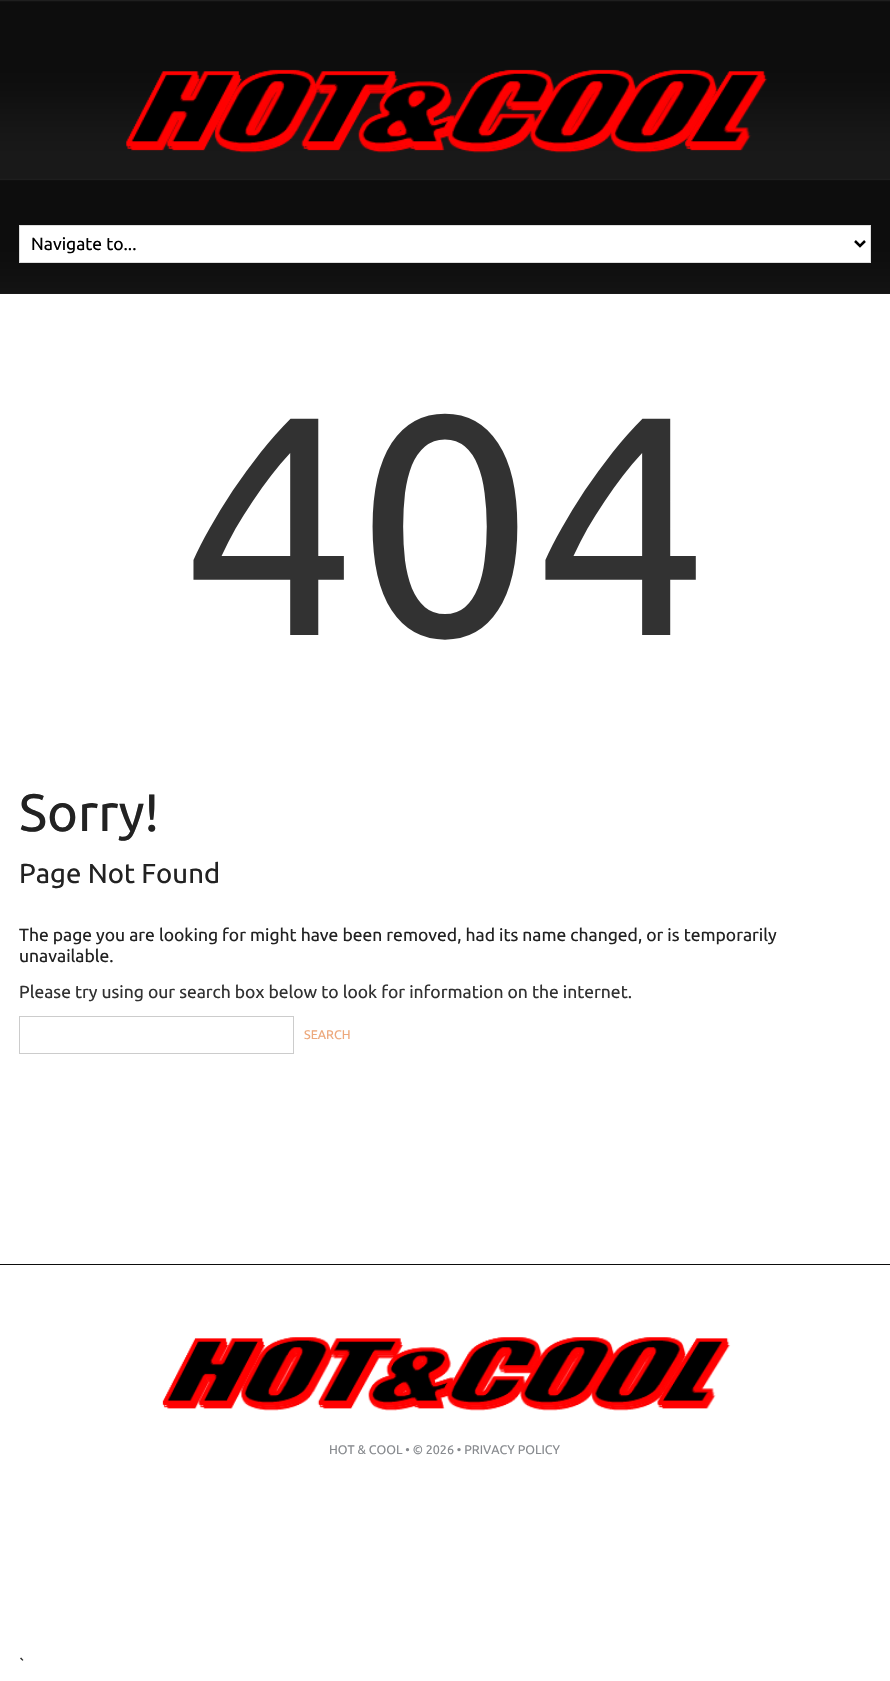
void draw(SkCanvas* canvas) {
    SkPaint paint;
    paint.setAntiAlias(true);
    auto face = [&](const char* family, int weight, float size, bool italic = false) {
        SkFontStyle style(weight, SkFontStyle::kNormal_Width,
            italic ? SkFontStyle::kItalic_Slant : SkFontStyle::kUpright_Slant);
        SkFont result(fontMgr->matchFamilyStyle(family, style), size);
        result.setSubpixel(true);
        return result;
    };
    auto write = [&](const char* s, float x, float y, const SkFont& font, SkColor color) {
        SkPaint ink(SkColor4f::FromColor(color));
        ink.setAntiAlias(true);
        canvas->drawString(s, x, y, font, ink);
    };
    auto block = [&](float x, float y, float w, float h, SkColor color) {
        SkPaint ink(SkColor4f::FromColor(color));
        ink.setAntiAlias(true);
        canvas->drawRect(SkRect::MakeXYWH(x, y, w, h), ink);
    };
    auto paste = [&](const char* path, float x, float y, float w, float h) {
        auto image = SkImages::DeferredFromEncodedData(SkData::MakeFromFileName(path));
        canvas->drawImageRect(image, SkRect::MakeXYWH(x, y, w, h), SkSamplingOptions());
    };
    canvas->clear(SK_ColorWHITE);
    block(0, 293, 890, 1, SkColorSetRGB(24, 24, 24));
    paste("pic1.png", 0, 0, 890, 293);
    paste("pic2.png", 126, 69, 642, 84);
    paint.setColor(SK_ColorWHITE);
    canvas->drawRect(SkRect::MakeXYWH(19.5f, 225.5f, 851, 37), paint);
    paint.setStyle(SkPaint::kStroke_Style);
    paint.setStrokeWidth(1);
    paint.setColor(SkColorSetRGB(221, 221, 221));
    canvas->drawRect(SkRect::MakeXYWH(19.5f, 225.5f, 851, 37), paint);
    paint.setStrokeWidth(2.5f);
    paint.setColor(SK_ColorBLACK);
    canvas->drawPath(SkPathBuilder().moveTo(855, 241).lineTo(860, 246).lineTo(865, 241).detach(), paint);
    auto kFont1 = face("Ubuntu", 400, 17.5f);
    write("Navigate to...", 31, 250, kFont1, SK_ColorBLACK);
    auto kFont2 = face("Ubuntu", 400, 312);
    write("404", 181, 635, kFont2, SkColorSetRGB(50, 50, 50));
    auto kFont3 = face("Ubuntu", 400, 52.5f);
    write("Sorry!", 19, 831, kFont3, SkColorSetRGB(34, 34, 34));
    auto kFont4 = face("Ubuntu", 400, 27.5f);
    write("Page Not Found", 19, 883, kFont4, SkColorSetRGB(34, 34, 34));
    write("The page you are looking for might have been removed, had its name changed, or is temporarily", 19, 941, kFont1, SkColorSetRGB(34, 34, 34));
    write("unavailable.", 19, 962, kFont1, SkColorSetRGB(34, 34, 34));
    write("Please try using our search box below to look for information on the internet.", 19, 998, kFont1, SkColorSetRGB(50, 50, 50));
    paint.setStrokeWidth(1);
    paint.setColor(SkColorSetRGB(204, 204, 204));
    canvas->drawRect(SkRect::MakeXYWH(19.5f, 1016.5f, 274, 37), paint);
    auto kFont5 = face("Ubuntu", 400, 12.5f);
    write("SEARCH", 304, 1039, kFont5, SkColorSetRGB(237, 168, 123));
    block(0, 1264, 890, 1, SkColorSetRGB(13, 13, 13));
    paste("pic3.png", 162, 1337, 569, 74);
    write("HOT & COOL • © 2026 • PRIVACY POLICY", 329, 1454, kFont5, SkColorSetRGB(135, 138, 142));
    write("`", 19, 1671, kFont1, SkColorSetRGB(50, 50, 50));
}
